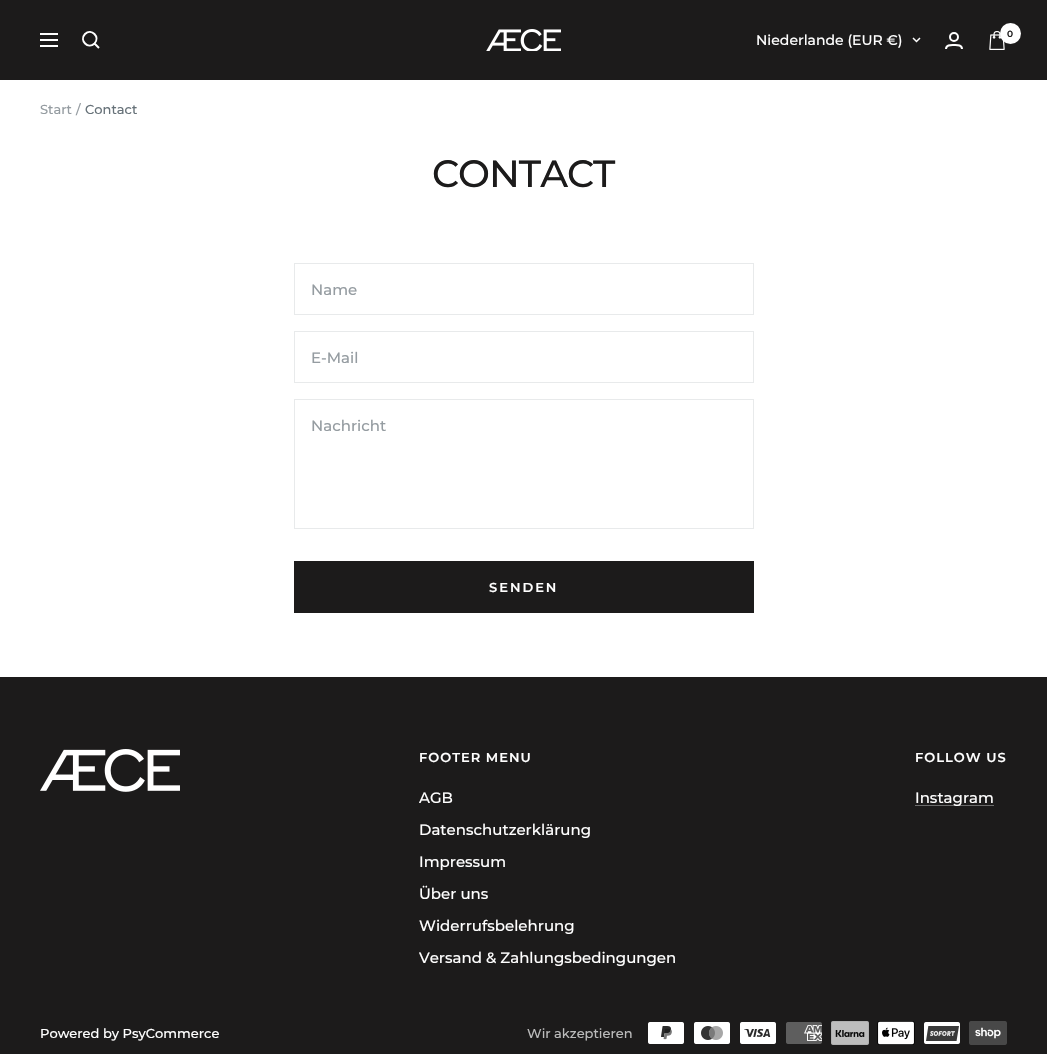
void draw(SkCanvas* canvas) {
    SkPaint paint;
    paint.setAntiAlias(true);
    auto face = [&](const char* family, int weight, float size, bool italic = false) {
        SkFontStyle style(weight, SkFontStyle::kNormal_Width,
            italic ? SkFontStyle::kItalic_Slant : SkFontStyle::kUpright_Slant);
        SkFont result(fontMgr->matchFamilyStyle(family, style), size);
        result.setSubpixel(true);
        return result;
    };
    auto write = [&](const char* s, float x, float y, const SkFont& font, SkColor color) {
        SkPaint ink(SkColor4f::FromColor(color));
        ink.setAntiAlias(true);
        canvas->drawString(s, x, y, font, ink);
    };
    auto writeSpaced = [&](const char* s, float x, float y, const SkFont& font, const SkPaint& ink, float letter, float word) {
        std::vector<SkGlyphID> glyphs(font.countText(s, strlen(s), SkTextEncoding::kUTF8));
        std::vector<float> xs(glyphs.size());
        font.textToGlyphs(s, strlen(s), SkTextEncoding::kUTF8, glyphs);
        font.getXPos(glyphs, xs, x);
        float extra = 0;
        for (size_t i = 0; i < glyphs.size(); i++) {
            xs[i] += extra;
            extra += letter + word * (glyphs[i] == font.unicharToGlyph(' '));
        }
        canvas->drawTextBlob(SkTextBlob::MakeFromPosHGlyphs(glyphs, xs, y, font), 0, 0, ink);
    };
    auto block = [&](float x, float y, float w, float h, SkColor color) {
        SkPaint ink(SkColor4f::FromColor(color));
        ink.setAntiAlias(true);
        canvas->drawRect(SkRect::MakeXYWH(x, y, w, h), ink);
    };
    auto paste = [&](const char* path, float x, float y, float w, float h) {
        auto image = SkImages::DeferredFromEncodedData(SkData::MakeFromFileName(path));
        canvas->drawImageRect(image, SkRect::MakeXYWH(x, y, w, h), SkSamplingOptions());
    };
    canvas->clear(SK_ColorWHITE);
    block(0, 0, 1047, 80, SkColorSetRGB(28, 27, 27));
    paint.setStyle(SkPaint::kStroke_Style);
    paint.setStrokeWidth(2);
    paint.setColor(SK_ColorWHITE);
    canvas->drawPath(SkPathBuilder().moveTo(40, 34).lineTo(58, 34).moveTo(40, 46).lineTo(58, 46).close().moveTo(40, 40).lineTo(58, 40).close().moveTo(94.5f, 43.5f).cubicTo(100.5f, 37, 91.5f, 28, 85, 34).cubicTo(79, 40.5f, 88, 49.5f, 94.5f, 43.5f).close().moveTo(94.5f, 43.5f).lineTo(99, 48).detach(), paint);
    paste("pic1.png", 486, 29, 75, 22);
    auto kFont1 = face("Montserrat", 500, 14);
    write("Niederlande (EUR €)", 756, 45, kFont1, SK_ColorWHITE);
    paint.setStrokeWidth(1.5f);
    canvas->drawPath(SkPathBuilder().moveTo(913, 38).lineTo(916.5f, 41.5f).lineTo(920, 38).detach(), paint);
    paint.setStrokeWidth(2);
    canvas->drawCircle(954, 37, 4, paint);
    canvas->drawPath(SkPathBuilder().moveTo(946, 49).cubicTo(946, 44.5f, 951, 45, 954, 45).cubicTo(957, 45, 962, 44.5f, 962, 49).detach(), paint);
    paste("pic2.png", 989, 31, 16, 19);
    paint.setStyle(SkPaint::kFill_Style);
    canvas->drawCircle(1010.5f, 33.5f, 10.5f, paint);
    auto kFont2 = face("Montserrat", 600, 9);
    write("0", 1007, 37, kFont2, SkColorSetRGB(28, 27, 27));
    auto kFont3 = face("Montserrat", 500, 13);
    write("Start", 40, 114, kFont3, SkColorSetRGB(149, 156, 161));
    write("/", 76, 114, kFont3, SkColorSetRGB(149, 156, 161));
    write("Contact", 85, 114, kFont3, SkColorSetRGB(103, 114, 121));
    auto kFont4 = face("Montserrat", 500, 38);
    paint.setColor(SkColorSetRGB(28, 27, 27));
    writeSpaced("CONTACT", 432, 187, kFont4, paint, -1, 0);
    paint.setStyle(SkPaint::kStroke_Style);
    paint.setStrokeWidth(1);
    paint.setColor(SkColorSetRGB(232, 234, 235));
    canvas->drawRect(SkRect::MakeXYWH(294.5f, 263.5f, 459, 51), paint);
    auto kFont5 = face("Montserrat", 500, 15);
    write("Name", 311, 295, kFont5, SkColorSetRGB(149, 156, 161));
    canvas->drawRect(SkRect::MakeXYWH(294.5f, 331.5f, 459, 51), paint);
    write("E-Mail", 311, 363, kFont5, SkColorSetRGB(149, 156, 161));
    canvas->drawRect(SkRect::MakeXYWH(294.5f, 399.5f, 459, 129), paint);
    write("Nachricht", 311, 431, kFont5, SkColorSetRGB(149, 156, 161));
    block(294, 561, 460, 52, SkColorSetRGB(28, 27, 27));
    auto kFont6 = face("Montserrat", 600, 13);
    paint.setStyle(SkPaint::kFill_Style);
    paint.setColor(SK_ColorWHITE);
    writeSpaced("SENDEN", 489, 592, kFont6, paint, 2, 0);
    block(0, 677, 1047, 377, SkColorSetRGB(28, 27, 27));
    paste("pic3.png", 40, 749, 140, 43);
    writeSpaced("FOOTER MENU", 419, 762, kFont6, paint, 1, 0);
    write("AGB", 419, 803, kFont5, SK_ColorWHITE);
    write("Datenschutzerklärung", 419, 835, kFont5, SK_ColorWHITE);
    write("Impressum", 419, 867, kFont5, SK_ColorWHITE);
    write("Über uns", 419, 899, kFont5, SK_ColorWHITE);
    write("Widerrufsbelehrung", 419, 931, kFont5, SK_ColorWHITE);
    write("Versand & Zahlungsbedingungen", 419, 963, kFont5, SK_ColorWHITE);
    writeSpaced("FOLLOW US", 915, 762, kFont6, paint, 1, 0);
    block(915, 805, 79, 1, SkColorSetRGB(107, 107, 107));
    write("Instagram", 915, 803, kFont5, SK_ColorWHITE);
    write("Powered by PsyCommerce", 40, 1038, kFont3, SK_ColorWHITE);
    write("Wir akzeptieren", 527, 1038, kFont3, SkColorSetRGB(187, 187, 187));
    paste("pic4.png", 648, 1022, 36, 22);
    paste("pic5.png", 694, 1022, 36, 22);
    paste("pic6.png", 740, 1022, 36, 22);
    paste("pic7.png", 786, 1022, 36, 22);
    paste("pic8.png", 831, 1021, 38, 24);
    paste("pic9.png", 877, 1021, 38, 24);
    paste("pic10.png", 924, 1022, 36, 22);
    paste("pic11.png", 969, 1021, 38, 24);
}
